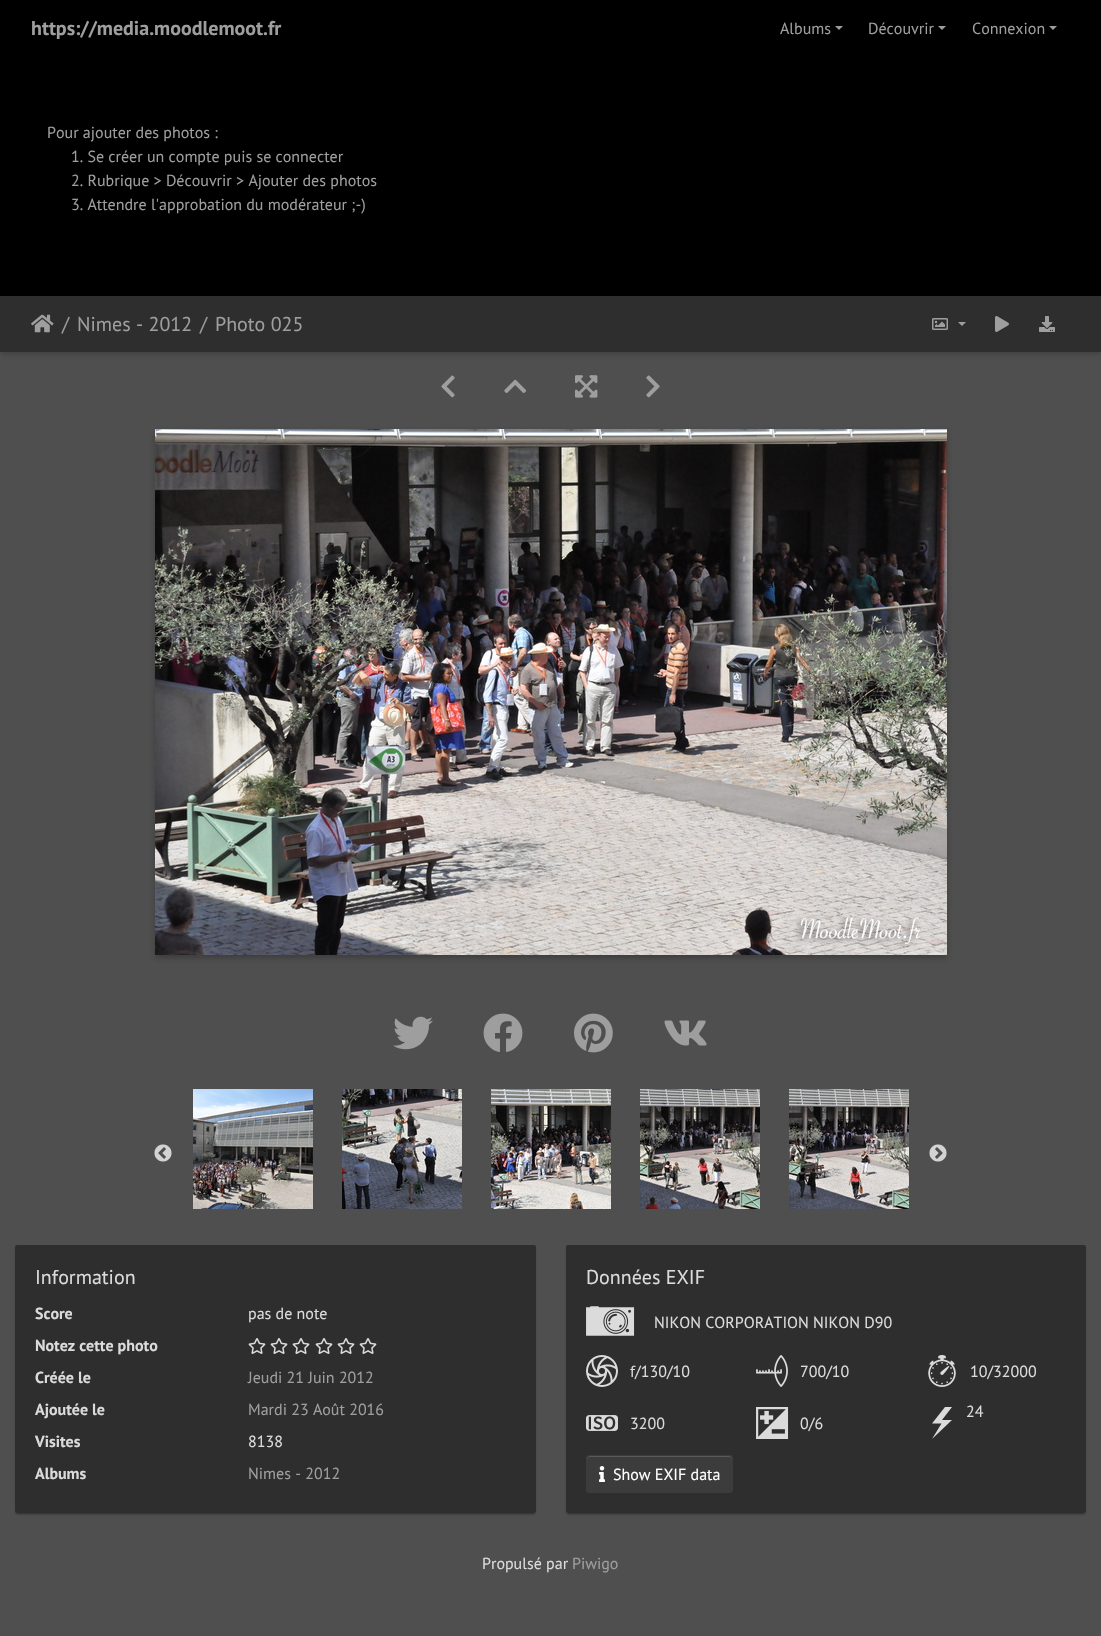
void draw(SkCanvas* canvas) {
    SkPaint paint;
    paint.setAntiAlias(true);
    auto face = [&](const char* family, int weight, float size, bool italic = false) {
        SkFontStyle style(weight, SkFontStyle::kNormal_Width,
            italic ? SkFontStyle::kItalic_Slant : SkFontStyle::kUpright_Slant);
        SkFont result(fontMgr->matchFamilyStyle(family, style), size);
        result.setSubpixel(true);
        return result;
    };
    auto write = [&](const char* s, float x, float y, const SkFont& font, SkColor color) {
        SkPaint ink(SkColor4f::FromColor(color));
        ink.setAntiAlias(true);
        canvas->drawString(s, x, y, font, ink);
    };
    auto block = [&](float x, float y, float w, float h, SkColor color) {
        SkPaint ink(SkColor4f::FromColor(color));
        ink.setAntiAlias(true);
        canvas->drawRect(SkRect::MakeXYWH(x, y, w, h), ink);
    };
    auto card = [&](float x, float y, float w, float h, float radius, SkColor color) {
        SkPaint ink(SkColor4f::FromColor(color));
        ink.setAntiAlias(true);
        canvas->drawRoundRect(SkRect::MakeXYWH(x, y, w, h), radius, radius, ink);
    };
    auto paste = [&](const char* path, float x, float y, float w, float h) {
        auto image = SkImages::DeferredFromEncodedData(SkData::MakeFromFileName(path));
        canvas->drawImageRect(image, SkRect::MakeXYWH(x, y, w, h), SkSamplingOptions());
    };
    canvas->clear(SkColorSetRGB(79, 79, 79));
    block(0, 0, 1101, 296, SK_ColorBLACK);
    auto kFont1 = face("PT Sans", 700, 20);
    write("https://media.moodlemoot.fr", 31, 35, kFont1, SkColorSetRGB(158, 158, 158));
    auto kFont2 = face("PT Sans", 400, 16);
    write("Albums", 780, 34, kFont2, SkColorSetRGB(158, 158, 158));
    paint.setColor(SkColorSetRGB(158, 158, 158));
    canvas->drawPath(SkPathBuilder().moveTo(835, 26).lineTo(843, 26).lineTo(839, 30).close().detach(), paint);
    write("Découvrir", 868, 34, kFont2, SkColorSetRGB(158, 158, 158));
    canvas->drawPath(SkPathBuilder().moveTo(938, 26).lineTo(946, 26).lineTo(942, 30).close().detach(), paint);
    write("Connexion", 972, 34, kFont2, SkColorSetRGB(158, 158, 158));
    canvas->drawPath(SkPathBuilder().moveTo(1049, 26).lineTo(1057, 26).lineTo(1053, 30).close().detach(), paint);
    write("Pour ajouter des photos :", 47, 138, kFont2, SkColorSetRGB(158, 158, 158));
    write("1. Se créer un compte puis se connecter", 71, 162, kFont2, SkColorSetRGB(158, 158, 158));
    write("2. Rubrique > Découvrir > Ajouter des photos", 71, 186, kFont2, SkColorSetRGB(158, 158, 158));
    write("3. Attendre l'approbation du modérateur ;-)", 71, 210, kFont2, SkColorSetRGB(158, 158, 158));
    paint.setColor(SkColorSetARGB(51, 0, 0, 0));
    paint.setMaskFilter(SkMaskFilter::MakeBlur(kNormal_SkBlurStyle, 2.5f));
    canvas->drawRect(SkRect::MakeXYWH(1, 300, 1099, 54), paint);
    paint.setMaskFilter(nullptr);
    block(0, 296, 1101, 56, SkColorSetRGB(46, 46, 46));
    paste("pic1.png", 31, 314, 23, 19);
    auto kFont3 = face("PT Sans", 400, 20);
    write("/", 62, 331, kFont3, SkColorSetRGB(158, 158, 158));
    write("Nimes - 2012", 77, 331, kFont3, SkColorSetRGB(158, 158, 158));
    write("/", 200, 331, kFont3, SkColorSetRGB(158, 158, 158));
    write("Photo 025", 215, 331, kFont3, SkColorSetRGB(158, 158, 158));
    paste("pic2.png", 932, 318, 16, 12);
    paint.setColor(SkColorSetRGB(158, 158, 158));
    canvas->drawPath(SkPathBuilder().moveTo(958, 322).lineTo(966, 322).lineTo(962, 326).close().detach(), paint);
    paste("pic3.png", 995, 316, 14, 16);
    paste("pic4.png", 1039, 316, 16, 16);
    paste("pic5.png", 441, 375, 14, 23);
    paste("pic6.png", 504, 379, 22, 14);
    paste("pic7.png", 575, 375, 23, 23);
    paste("pic8.png", 646, 375, 14, 23);
    paint.setColor(SkColorSetARGB(59, 0, 0, 0));
    paint.setMaskFilter(SkMaskFilter::MakeBlur(kNormal_SkBlurStyle, 3));
    canvas->drawRect(SkRect::MakeXYWH(155, 432, 792, 526), paint);
    paint.setMaskFilter(nullptr);
    paste("pic9.png", 155, 429, 792, 526);
    paste("pic10.png", 393, 1016, 40, 34);
    paste("pic11.png", 483, 1013, 40, 39);
    paste("pic12.png", 574, 1013, 39, 40);
    paste("pic13.png", 664, 1020, 43, 26);
    paste("pic14.png", 154, 1144, 18, 18);
    paste("pic15.png", 193, 1089, 120, 120);
    paste("pic16.png", 342, 1089, 120, 120);
    paste("pic17.png", 491, 1089, 120, 120);
    paste("pic18.png", 640, 1089, 120, 120);
    paste("pic19.png", 789, 1089, 120, 120);
    paste("pic20.png", 929, 1144, 18, 18);
    paint.setColor(SkColorSetARGB(51, 0, 0, 0));
    paint.setMaskFilter(SkMaskFilter::MakeBlur(kNormal_SkBlurStyle, 0.5f));
    canvas->drawRect(SkRect::MakeXYWH(17, 1250, 517, 264), paint);
    paint.setMaskFilter(nullptr);
    paint.setColor(SkColorSetARGB(36, 0, 0, 0));
    paint.setMaskFilter(SkMaskFilter::MakeBlur(kNormal_SkBlurStyle, 1));
    canvas->drawRoundRect(SkRect::MakeXYWH(15, 1247, 521, 268), 2, 2, paint);
    paint.setMaskFilter(nullptr);
    card(15, 1245, 521, 268, 2, SkColorSetRGB(46, 46, 46));
    write("Information", 35, 1284, kFont3, SkColorSetRGB(219, 219, 219));
    auto kFont4 = face("PT Sans", 700, 16);
    write("Score", 35, 1319, kFont4, SkColorSetRGB(219, 219, 219));
    write("pas de note", 248, 1319, kFont2, SkColorSetRGB(219, 219, 219));
    write("Notez cette photo", 35, 1351, kFont4, SkColorSetRGB(219, 219, 219));
    paste("pic21.png", 248, 1338, 18, 16);
    paste("pic21.png", 270, 1338, 18, 16);
    paste("pic21.png", 292, 1338, 18, 16);
    paste("pic21.png", 315, 1338, 18, 16);
    paste("pic21.png", 337, 1338, 18, 16);
    paste("pic21.png", 359, 1338, 18, 16);
    write("Créée le", 35, 1383, kFont4, SkColorSetRGB(219, 219, 219));
    write("Jeudi 21 Juin 2012", 248, 1383, kFont2, SkColorSetRGB(158, 158, 158));
    write("Ajoutée le", 35, 1415, kFont4, SkColorSetRGB(219, 219, 219));
    write("Mardi 23 Août 2016", 248, 1415, kFont2, SkColorSetRGB(158, 158, 158));
    write("Visites", 35, 1447, kFont4, SkColorSetRGB(219, 219, 219));
    write("8138", 248, 1447, kFont2, SkColorSetRGB(219, 219, 219));
    write("Albums", 35, 1479, kFont4, SkColorSetRGB(219, 219, 219));
    write("Nimes - 2012", 248, 1479, kFont2, SkColorSetRGB(158, 158, 158));
    paint.setColor(SkColorSetARGB(51, 0, 0, 0));
    paint.setMaskFilter(SkMaskFilter::MakeBlur(kNormal_SkBlurStyle, 0.5f));
    canvas->drawRect(SkRect::MakeXYWH(568, 1250, 516, 264), paint);
    paint.setMaskFilter(nullptr);
    paint.setColor(SkColorSetARGB(36, 0, 0, 0));
    paint.setMaskFilter(SkMaskFilter::MakeBlur(kNormal_SkBlurStyle, 1));
    canvas->drawRoundRect(SkRect::MakeXYWH(566, 1247, 520, 268), 2, 2, paint);
    paint.setMaskFilter(nullptr);
    card(566, 1245, 520, 268, 2, SkColorSetRGB(46, 46, 46));
    write("Données EXIF", 586, 1284, kFont3, SkColorSetRGB(219, 219, 219));
    paste("pic22.png", 586, 1306, 49, 30);
    write("NIKON CORPORATION NIKON D90", 654, 1328, kFont2, SkColorSetRGB(219, 219, 219));
    paste("pic23.png", 586, 1355, 32, 32);
    write("f/130/10", 630, 1377, kFont2, SkColorSetRGB(219, 219, 219));
    paste("pic24.png", 756, 1355, 32, 32);
    write("700/10", 800, 1377, kFont2, SkColorSetRGB(219, 219, 219));
    paste("pic25.png", 928, 1355, 28, 32);
    write("10/32000", 970, 1377, kFont2, SkColorSetRGB(219, 219, 219));
    paint.setColor(SkColorSetRGB(219, 219, 219));
    canvas->drawPath(SkPathBuilder().moveTo(945, 1407).lineTo(932, 1423.5f).lineTo(941.5f, 1423.5f).lineTo(932, 1439).lineTo(952, 1420).lineTo(942, 1420).lineTo(952, 1407).close().detach(), paint);
    write("24", 966, 1417, kFont2, SkColorSetRGB(219, 219, 219));
    paste("pic26.png", 586, 1415, 32, 16);
    write("3200", 630, 1429, kFont2, SkColorSetRGB(219, 219, 219));
    paste("pic27.png", 756, 1407, 33, 32);
    write("0/6", 800, 1429, kFont2, SkColorSetRGB(219, 219, 219));
    card(586, 1455, 147, 38, 4, SkColorSetRGB(60, 60, 60));
    paint.setColor(SkColorSetRGB(89, 89, 89));
    canvas->drawPath(SkPathBuilder().moveTo(590, 1457).lineTo(729, 1457).cubicTo(731, 1457, 732, 1458, 732, 1460).lineTo(732, 1459).cubicTo(732, 1457, 731, 1456, 729, 1456).lineTo(590, 1456).cubicTo(588, 1456, 587, 1457, 587, 1459).lineTo(587, 1460).cubicTo(587, 1458, 588, 1457, 590, 1457).close().detach(), paint);
    paint.setStyle(SkPaint::kStroke_Style);
    paint.setStrokeWidth(1);
    paint.setColor(SkColorSetRGB(60, 60, 60));
    canvas->drawRoundRect(SkRect::MakeXYWH(586.5f, 1455.5f, 146, 37), 3.5f, 3.5f, paint);
    paste("pic28.png", 599, 1466, 6, 16);
    write("Show EXIF data", 613, 1480, kFont2, SK_ColorWHITE);
    write("Propulsé par", 482, 1569, kFont2, SkColorSetRGB(219, 219, 219));
    write("Piwigo", 572, 1569, kFont2, SkColorSetRGB(158, 158, 158));
}
